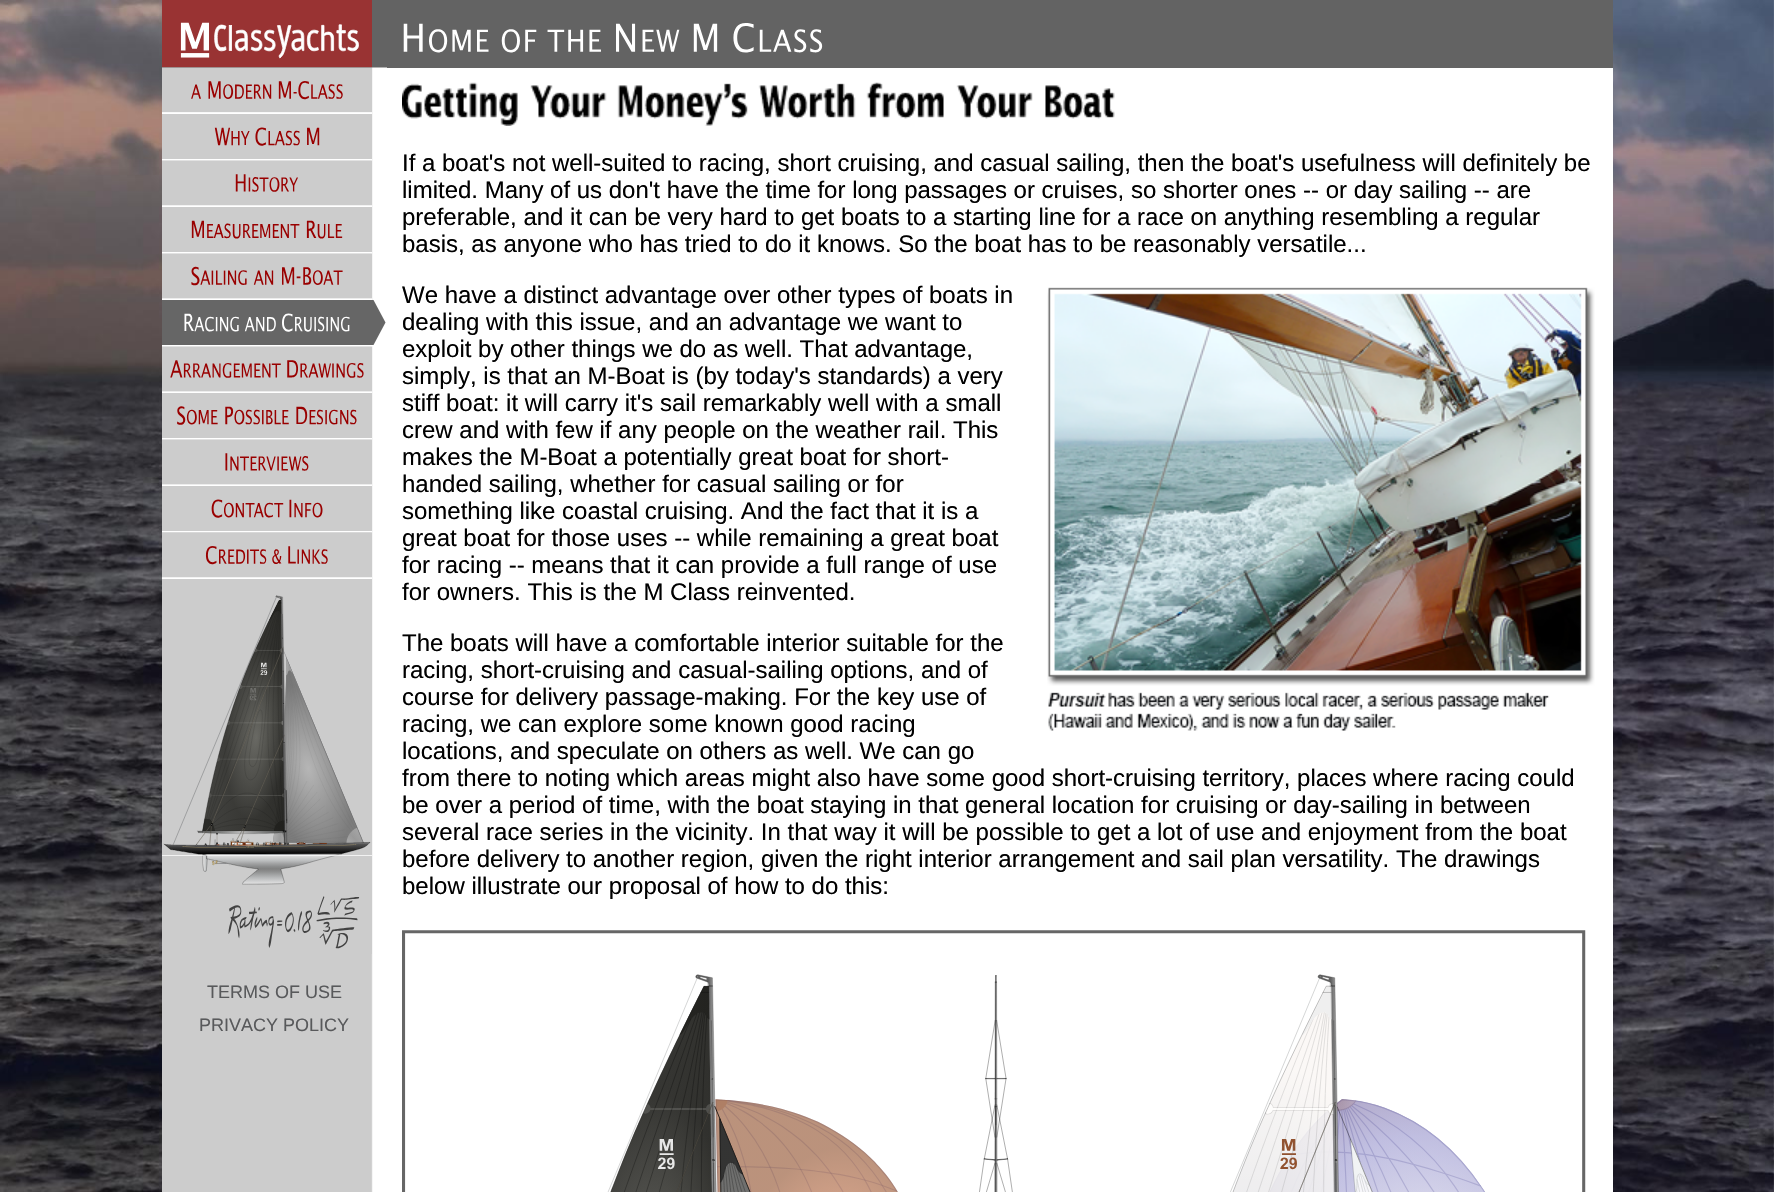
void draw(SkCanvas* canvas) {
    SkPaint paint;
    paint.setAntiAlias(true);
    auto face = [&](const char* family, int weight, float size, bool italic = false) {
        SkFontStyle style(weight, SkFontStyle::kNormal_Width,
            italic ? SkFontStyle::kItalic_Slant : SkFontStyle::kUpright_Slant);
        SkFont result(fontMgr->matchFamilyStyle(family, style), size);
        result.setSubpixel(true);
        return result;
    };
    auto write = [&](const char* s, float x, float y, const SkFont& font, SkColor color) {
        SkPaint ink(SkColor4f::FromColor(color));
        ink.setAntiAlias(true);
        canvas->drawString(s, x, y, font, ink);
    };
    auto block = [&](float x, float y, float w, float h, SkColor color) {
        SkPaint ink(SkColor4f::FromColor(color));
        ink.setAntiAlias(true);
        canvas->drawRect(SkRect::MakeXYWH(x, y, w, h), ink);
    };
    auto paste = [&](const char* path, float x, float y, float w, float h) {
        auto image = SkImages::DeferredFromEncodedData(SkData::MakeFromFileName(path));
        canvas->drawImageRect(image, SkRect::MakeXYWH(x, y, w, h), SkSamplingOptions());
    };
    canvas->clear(SK_ColorWHITE);
    paste("pic1.png", 0, 0, 1774, 1192);
    block(387, 68, 1226, 1124, SK_ColorWHITE);
    block(162, 0, 1451, 68, SkColorSetRGB(99, 99, 99));
    paste("pic2.png", 162, 0, 661, 68);
    paste("pic3.png", 402, 82, 713, 44);
    auto kFont1 = face("Liberation Sans", 400, 24);
    write("If a boat's not well-suited to racing, short cruising, and casual sailing, then the boat's usefulness will definitely be", 402, 171, kFont1, SK_ColorBLACK);
    write("limited. Many of us don't have the time for long passages or cruises, so shorter ones -- or day sailing -- are", 402, 198, kFont1, SK_ColorBLACK);
    write("preferable, and it can be very hard to get boats to a starting line for a race on anything resembling a regular", 402, 225, kFont1, SK_ColorBLACK);
    write("basis, as anyone who has tried to do it knows. So the boat has to be reasonably versatile...", 402, 252, kFont1, SK_ColorBLACK);
    write("We have a distinct advantage over other types of boats in", 402, 303, kFont1, SK_ColorBLACK);
    paste("pic4.png", 1047, 287, 548, 444);
    write("dealing with this issue, and an advantage we want to", 402, 330, kFont1, SK_ColorBLACK);
    write("exploit by other things we do as well. That advantage,", 402, 357, kFont1, SK_ColorBLACK);
    write("simply, is that an M-Boat is (by today's standards) a very", 402, 384, kFont1, SK_ColorBLACK);
    write("stiff boat: it will carry it's sail remarkably well with a small", 402, 411, kFont1, SK_ColorBLACK);
    write("crew and with few if any people on the weather rail. This", 402, 438, kFont1, SK_ColorBLACK);
    write("makes the M-Boat a potentially great boat for short-", 402, 465, kFont1, SK_ColorBLACK);
    write("handed sailing, whether for casual sailing or for", 402, 492, kFont1, SK_ColorBLACK);
    write("something like coastal cruising. And the fact that it is a", 402, 519, kFont1, SK_ColorBLACK);
    write("great boat for those uses -- while remaining a great boat", 402, 546, kFont1, SK_ColorBLACK);
    write("for racing -- means that it can provide a full range of use", 402, 573, kFont1, SK_ColorBLACK);
    write("for owners. This is the M Class reinvented.", 402, 600, kFont1, SK_ColorBLACK);
    write("The boats will have a comfortable interior suitable for the", 402, 651, kFont1, SK_ColorBLACK);
    write("racing, short-cruising and casual-sailing options, and of", 402, 678, kFont1, SK_ColorBLACK);
    write("course for delivery passage-making. For the key use of", 402, 705, kFont1, SK_ColorBLACK);
    write("racing, we can explore some known good racing", 402, 732, kFont1, SK_ColorBLACK);
    write("locations, and speculate on others as well. We can go", 402, 759, kFont1, SK_ColorBLACK);
    write("from there to noting which areas might also have some good short-cruising territory, places where racing could", 402, 786, kFont1, SK_ColorBLACK);
    write("be over a period of time, with the boat staying in that general location for cruising or day-sailing in between", 402, 813, kFont1, SK_ColorBLACK);
    write("several race series in the vicinity. In that way it will be possible to get a lot of use and enjoyment from the boat", 402, 840, kFont1, SK_ColorBLACK);
    write("before delivery to another region, given the right interior arrangement and sail plan versatility. The drawings", 402, 867, kFont1, SK_ColorBLACK);
    write("below illustrate our proposal of how to do this:", 402, 894, kFont1, SK_ColorBLACK);
    paste("pic5.png", 402, 930, 1184, 262);
    paste("pic6.png", 162, 67, 225, 1125);
    paste("pic7.png", 162, 68, 210, 46);
    paste("pic8.png", 162, 114, 210, 47);
    paste("pic9.png", 162, 161, 210, 46);
    paste("pic10.png", 162, 207, 210, 47);
    paste("pic11.png", 162, 254, 210, 46);
    paste("pic12.png", 162, 300, 224, 47);
    paste("pic13.png", 162, 347, 210, 46);
    paste("pic14.png", 162, 393, 210, 47);
    paste("pic15.png", 162, 440, 210, 46);
    paste("pic16.png", 162, 486, 210, 47);
    paste("pic17.png", 162, 533, 210, 46);
    paste("pic18.png", 162, 579, 210, 375);
    auto kFont2 = face("Liberation Sans", 400, 18);
    write("TERMS OF USE", 207, 998, kFont2, SkColorSetRGB(88, 89, 91));
    write("PRIVACY POLICY", 199, 1031, kFont2, SkColorSetRGB(88, 89, 91));
}
